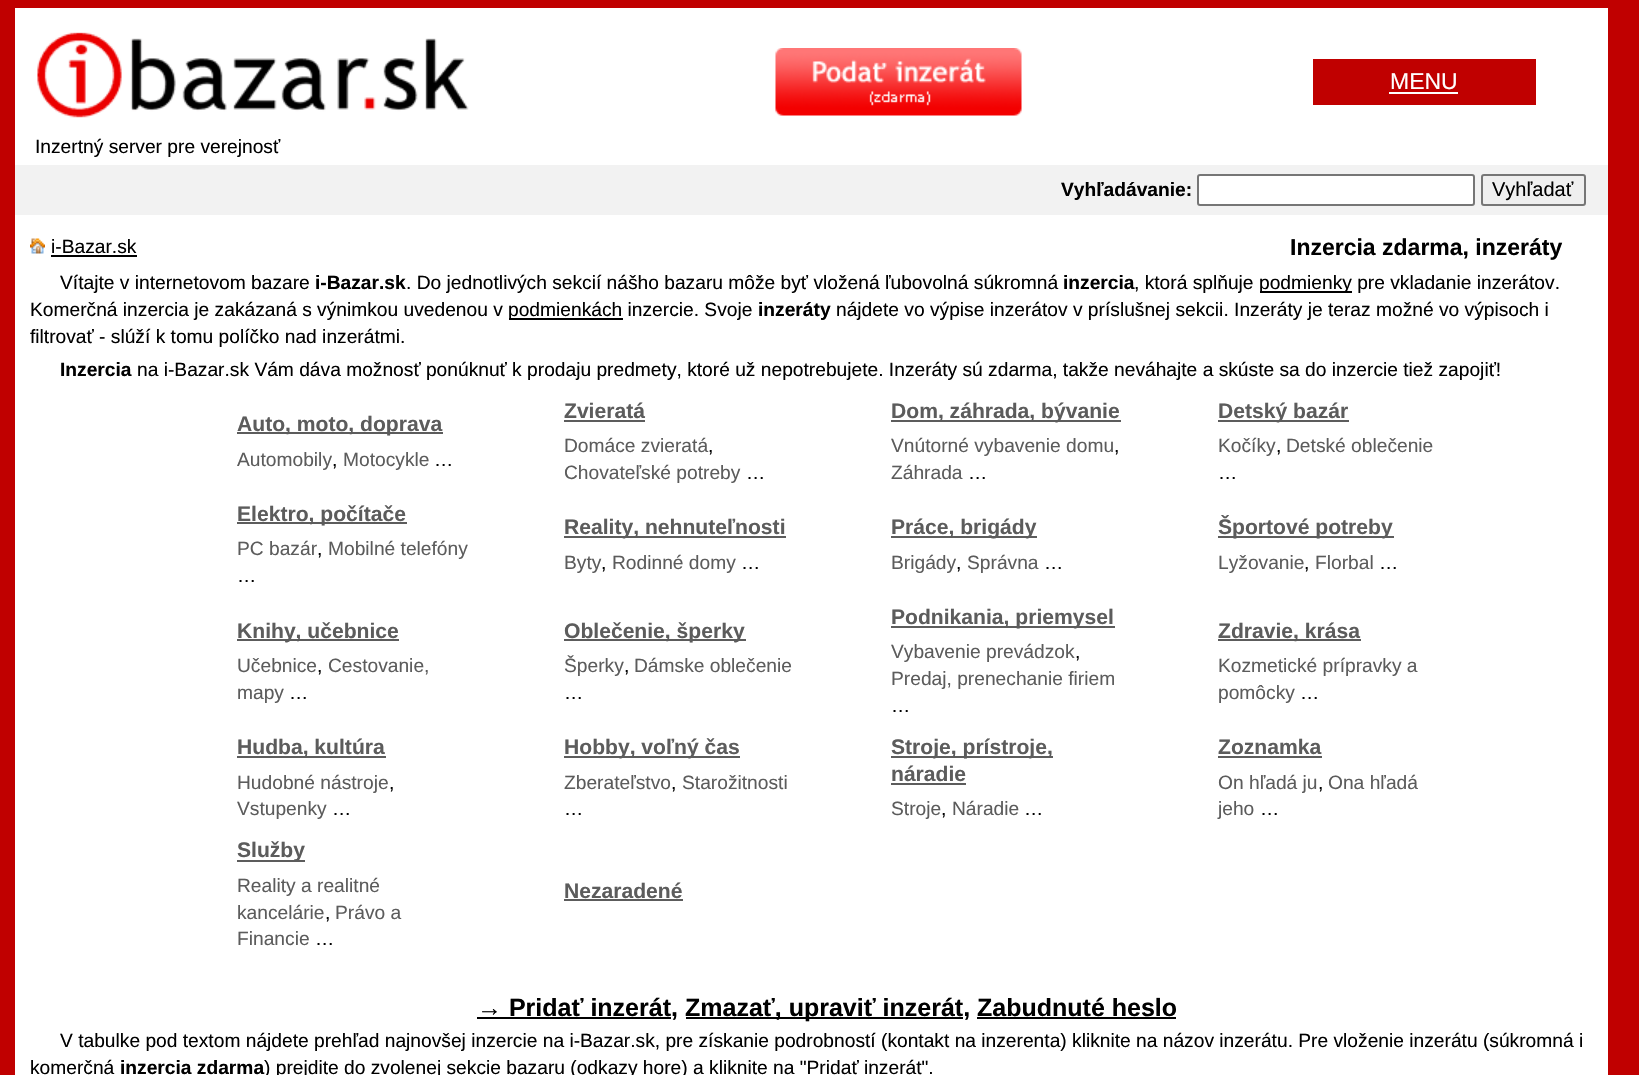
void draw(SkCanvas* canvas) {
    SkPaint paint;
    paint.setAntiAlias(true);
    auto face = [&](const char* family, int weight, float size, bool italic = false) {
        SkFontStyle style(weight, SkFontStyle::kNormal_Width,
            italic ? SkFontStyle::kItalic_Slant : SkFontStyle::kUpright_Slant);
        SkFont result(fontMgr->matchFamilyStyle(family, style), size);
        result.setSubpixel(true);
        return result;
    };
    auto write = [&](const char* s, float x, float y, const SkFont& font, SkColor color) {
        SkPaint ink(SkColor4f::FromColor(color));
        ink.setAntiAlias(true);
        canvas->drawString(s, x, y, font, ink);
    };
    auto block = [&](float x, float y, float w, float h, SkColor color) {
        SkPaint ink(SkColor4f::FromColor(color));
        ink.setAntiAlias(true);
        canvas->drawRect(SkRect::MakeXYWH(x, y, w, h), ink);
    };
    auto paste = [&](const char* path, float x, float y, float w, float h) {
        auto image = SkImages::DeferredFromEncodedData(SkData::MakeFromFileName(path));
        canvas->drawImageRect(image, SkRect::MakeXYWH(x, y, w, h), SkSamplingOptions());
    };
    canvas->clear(SkColorSetRGB(192, 0, 0));
    block(15, 8, 1593, 1067, SK_ColorWHITE);
    paste("pic1.png", 37, 32, 432, 86);
    paste("pic2.png", 775, 48, 247, 68);
    block(1313, 59, 223, 46, SkColorSetRGB(192, 0, 0));
    auto kFont1 = face("Liberation Sans", 400, 23);
    write("MENU", 1390, 89, kFont1, SK_ColorWHITE);
    block(1389, 92, 69, 2, SK_ColorWHITE);
    auto kFont2 = face("Liberation Sans", 400, 19.2f);
    write("Inzertný server pre verejnosť", 35, 153, kFont2, SK_ColorBLACK);
    block(15, 165, 1593, 50, SkColorSetRGB(242, 242, 242));
    auto kFont3 = face("Liberation Sans", 700, 19.2f);
    write("Vyhľadávanie:", 1061, 196, kFont3, SK_ColorBLACK);
    paint.setColor(SK_ColorWHITE);
    canvas->drawRoundRect(SkRect::MakeXYWH(1198, 175, 276, 30), 2, 2, paint);
    paint.setStyle(SkPaint::kStroke_Style);
    paint.setStrokeWidth(2);
    paint.setColor(SkColorSetRGB(118, 118, 118));
    canvas->drawRoundRect(SkRect::MakeXYWH(1198, 175, 276, 30), 2, 2, paint);
    paint.setStyle(SkPaint::kFill_Style);
    paint.setColor(SkColorSetRGB(239, 239, 239));
    canvas->drawRoundRect(SkRect::MakeXYWH(1482, 175, 103, 30), 2, 2, paint);
    paint.setStyle(SkPaint::kStroke_Style);
    paint.setColor(SkColorSetRGB(118, 118, 118));
    canvas->drawRoundRect(SkRect::MakeXYWH(1482, 175, 103, 30), 2, 2, paint);
    auto kFont4 = face("Liberation Sans", 400, 20);
    write("Vyhľadať", 1492, 196, kFont4, SK_ColorBLACK);
    paste("pic3.png", 30, 238, 15, 16);
    write("i-Bazar.sk", 51, 253, kFont2, SK_ColorBLACK);
    block(51, 255, 86, 2, SK_ColorBLACK);
    auto kFont5 = face("Liberation Sans", 700, 23);
    write("Inzercia zdarma, inzeráty", 1290, 255, kFont5, SK_ColorBLACK);
    write("Vítajte v internetovom bazare", 60, 289, kFont2, SK_ColorBLACK);
    write("i-Bazar.sk", 315, 289, kFont3, SK_ColorBLACK);
    write(". Do jednotlivých sekcií nášho bazaru môže byť vložená ľubovolná súkromná", 406, 289, kFont2, SK_ColorBLACK);
    write("inzercia", 1063, 289, kFont3, SK_ColorBLACK);
    write(", ktorá splňuje", 1134, 289, kFont2, SK_ColorBLACK);
    block(1260, 291, 92, 2, SK_ColorBLACK);
    write("podmienky pre vkladanie inzerátov.", 1259, 289, kFont2, SK_ColorBLACK);
    write("Komerčná inzercia je zakázaná s výnimkou uvedenou v", 30, 316, kFont2, SK_ColorBLACK);
    block(509, 318, 114, 2, SK_ColorBLACK);
    write("podmienkách inzercie. Svoje", 508, 316, kFont2, SK_ColorBLACK);
    write("inzeráty", 758, 316, kFont3, SK_ColorBLACK);
    write("nájdete vo výpise inzerátov v príslušnej sekcii. Inzeráty je teraz možné vo výpisoch i", 836, 316, kFont2, SK_ColorBLACK);
    write("filtrovať - slúží k tomu políčko nad inzerátmi.", 30, 343, kFont2, SK_ColorBLACK);
    write("Inzercia", 60, 376, kFont3, SK_ColorBLACK);
    write("na i-Bazar.sk Vám dáva možnosť ponúknuť k prodaju predmety, ktoré už nepotrebujete. Inzeráty sú zdarma, takže neváhajte a skúste sa do inzercie tiež zapojiť!", 137, 376, kFont2, SK_ColorBLACK);
    block(237, 432, 206, 2, SkColorSetRGB(92, 92, 92));
    auto kFont6 = face("Liberation Sans", 700, 21.1f);
    write("Auto, moto, doprava", 237, 431, kFont6, SkColorSetRGB(92, 92, 92));
    write("Automobily", 237, 466, kFont2, SkColorSetRGB(92, 92, 92));
    write(",", 332, 466, kFont2, SK_ColorBLACK);
    write("Motocykle", 343, 466, kFont2, SkColorSetRGB(92, 92, 92));
    write("…", 434, 466, kFont2, SK_ColorBLACK);
    write("Zvieratá", 564, 418, kFont6, SkColorSetRGB(92, 92, 92));
    block(564, 420, 81, 2, SkColorSetRGB(92, 92, 92));
    write("Domáce zvieratá", 564, 452, kFont2, SkColorSetRGB(92, 92, 92));
    write(",", 708, 452, kFont2, SK_ColorBLACK);
    write("Chovateľské potreby", 564, 479, kFont2, SkColorSetRGB(92, 92, 92));
    write("…", 746, 479, kFont2, SK_ColorBLACK);
    block(891, 420, 230, 2, SkColorSetRGB(92, 92, 92));
    write("Dom, záhrada, bývanie", 891, 418, kFont6, SkColorSetRGB(92, 92, 92));
    write("Vnútorné vybavenie domu", 891, 452, kFont2, SkColorSetRGB(92, 92, 92));
    write(",", 1114, 452, kFont2, SK_ColorBLACK);
    write("Záhrada", 891, 479, kFont2, SkColorSetRGB(92, 92, 92));
    write("…", 968, 479, kFont2, SK_ColorBLACK);
    block(1218, 420, 131, 2, SkColorSetRGB(92, 92, 92));
    write("Detský bazár", 1218, 418, kFont6, SkColorSetRGB(92, 92, 92));
    write("Kočíky", 1218, 452, kFont2, SkColorSetRGB(92, 92, 92));
    write(",", 1276, 452, kFont2, SK_ColorBLACK);
    write("Detské oblečenie", 1286, 452, kFont2, SkColorSetRGB(92, 92, 92));
    write("…", 1218, 479, kFont2, SK_ColorBLACK);
    block(237, 522, 170, 2, SkColorSetRGB(92, 92, 92));
    write("Elektro, počítače", 237, 521, kFont6, SkColorSetRGB(92, 92, 92));
    write("PC bazár", 237, 555, kFont2, SkColorSetRGB(92, 92, 92));
    write(",", 317, 555, kFont2, SK_ColorBLACK);
    write("Mobilné telefóny", 328, 555, kFont2, SkColorSetRGB(92, 92, 92));
    write("…", 237, 582, kFont2, SK_ColorBLACK);
    block(564, 536, 222, 2, SkColorSetRGB(92, 92, 92));
    write("Reality, nehnuteľnosti", 564, 534, kFont6, SkColorSetRGB(92, 92, 92));
    write("Byty", 564, 569, kFont2, SkColorSetRGB(92, 92, 92));
    write(",", 601, 569, kFont2, SK_ColorBLACK);
    write("Rodinné domy", 612, 569, kFont2, SkColorSetRGB(92, 92, 92));
    write("…", 741, 569, kFont2, SK_ColorBLACK);
    block(891, 536, 146, 2, SkColorSetRGB(92, 92, 92));
    write("Práce, brigády", 891, 534, kFont6, SkColorSetRGB(92, 92, 92));
    write("Brigády", 891, 569, kFont2, SkColorSetRGB(92, 92, 92));
    write(",", 956, 569, kFont2, SK_ColorBLACK);
    write("Správna", 967, 569, kFont2, SkColorSetRGB(92, 92, 92));
    write("…", 1044, 569, kFont2, SK_ColorBLACK);
    block(1218, 536, 176, 2, SkColorSetRGB(92, 92, 92));
    write("Športové potreby", 1218, 534, kFont6, SkColorSetRGB(92, 92, 92));
    write("Lyžovanie", 1218, 569, kFont2, SkColorSetRGB(92, 92, 92));
    write(",", 1304, 569, kFont2, SK_ColorBLACK);
    write("Florbal", 1315, 569, kFont2, SkColorSetRGB(92, 92, 92));
    write("…", 1379, 569, kFont2, SK_ColorBLACK);
    block(237, 639, 162, 2, SkColorSetRGB(92, 92, 92));
    write("Knihy, učebnice", 237, 638, kFont6, SkColorSetRGB(92, 92, 92));
    write("Učebnice", 237, 672, kFont2, SkColorSetRGB(92, 92, 92));
    write(",", 317, 672, kFont2, SK_ColorBLACK);
    write("Cestovanie,", 328, 672, kFont2, SkColorSetRGB(92, 92, 92));
    write("mapy", 237, 699, kFont2, SkColorSetRGB(92, 92, 92));
    write("…", 289, 699, kFont2, SK_ColorBLACK);
    block(564, 639, 182, 2, SkColorSetRGB(92, 92, 92));
    write("Oblečenie, šperky", 564, 638, kFont6, SkColorSetRGB(92, 92, 92));
    write("Šperky", 564, 672, kFont2, SkColorSetRGB(92, 92, 92));
    write(",", 624, 672, kFont2, SK_ColorBLACK);
    write("Dámske oblečenie", 634, 672, kFont2, SkColorSetRGB(92, 92, 92));
    write("…", 564, 699, kFont2, SK_ColorBLACK);
    block(891, 626, 224, 2, SkColorSetRGB(92, 92, 92));
    write("Podnikania, priemysel", 891, 624, kFont6, SkColorSetRGB(92, 92, 92));
    write("Vybavenie prevádzok", 891, 658, kFont2, SkColorSetRGB(92, 92, 92));
    write(",", 1075, 658, kFont2, SK_ColorBLACK);
    write("Predaj, prenechanie firiem", 891, 685, kFont2, SkColorSetRGB(92, 92, 92));
    write("…", 891, 712, kFont2, SK_ColorBLACK);
    block(1218, 639, 143, 2, SkColorSetRGB(92, 92, 92));
    write("Zdravie, krása", 1218, 638, kFont6, SkColorSetRGB(92, 92, 92));
    write("Kozmetické prípravky a", 1218, 672, kFont2, SkColorSetRGB(92, 92, 92));
    write("pomôcky", 1218, 699, kFont2, SkColorSetRGB(92, 92, 92));
    write("…", 1300, 699, kFont2, SK_ColorBLACK);
    block(237, 756, 149, 2, SkColorSetRGB(92, 92, 92));
    write("Hudba, kultúra", 237, 754, kFont6, SkColorSetRGB(92, 92, 92));
    write("Hudobné nástroje", 237, 789, kFont2, SkColorSetRGB(92, 92, 92));
    write(",", 389, 789, kFont2, SK_ColorBLACK);
    write("Vstupenky", 237, 815, kFont2, SkColorSetRGB(92, 92, 92));
    write("…", 332, 815, kFont2, SK_ColorBLACK);
    block(564, 756, 176, 2, SkColorSetRGB(92, 92, 92));
    write("Hobby, voľný čas", 564, 754, kFont6, SkColorSetRGB(92, 92, 92));
    write("Zberateľstvo", 564, 789, kFont2, SkColorSetRGB(92, 92, 92));
    write(",", 671, 789, kFont2, SK_ColorBLACK);
    write("Starožitnosti", 682, 789, kFont2, SkColorSetRGB(92, 92, 92));
    write("…", 564, 815, kFont2, SK_ColorBLACK);
    block(891, 756, 162, 2, SkColorSetRGB(92, 92, 92));
    write("Stroje, prístroje,", 891, 754, kFont6, SkColorSetRGB(92, 92, 92));
    write("náradie", 891, 781, kFont6, SkColorSetRGB(92, 92, 92));
    block(891, 783, 75, 2, SkColorSetRGB(92, 92, 92));
    write("Stroje", 891, 815, kFont2, SkColorSetRGB(92, 92, 92));
    write(",", 941, 815, kFont2, SK_ColorBLACK);
    write("Náradie", 952, 815, kFont2, SkColorSetRGB(92, 92, 92));
    write("…", 1024, 815, kFont2, SK_ColorBLACK);
    write("Zoznamka", 1218, 754, kFont6, SkColorSetRGB(92, 92, 92));
    block(1218, 756, 104, 2, SkColorSetRGB(92, 92, 92));
    write("On hľadá ju", 1218, 789, kFont2, SkColorSetRGB(92, 92, 92));
    write(",", 1318, 789, kFont2, SK_ColorBLACK);
    write("Ona hľadá", 1328, 789, kFont2, SkColorSetRGB(92, 92, 92));
    write("jeho", 1218, 815, kFont2, SkColorSetRGB(92, 92, 92));
    write("…", 1260, 815, kFont2, SK_ColorBLACK);
    block(237, 860, 68, 2, SkColorSetRGB(92, 92, 92));
    write("Služby", 237, 857, kFont6, SkColorSetRGB(92, 92, 92));
    write("Reality a realitné", 237, 892, kFont2, SkColorSetRGB(92, 92, 92));
    write("kancelárie", 237, 919, kFont2, SkColorSetRGB(92, 92, 92));
    write(",", 325, 919, kFont2, SK_ColorBLACK);
    write("Právo a", 335, 919, kFont2, SkColorSetRGB(92, 92, 92));
    write("Financie", 237, 945, kFont2, SkColorSetRGB(92, 92, 92));
    write("…", 315, 945, kFont2, SK_ColorBLACK);
    write("Nezaradené", 564, 898, kFont6, SkColorSetRGB(92, 92, 92));
    block(564, 899, 119, 2, SkColorSetRGB(92, 92, 92));
    block(477, 1017, 194, 2, SK_ColorBLACK);
    auto kFont7 = face("Liberation Sans", 700, 25);
    write("→ Pridať inzerát,", 477, 1016, kFont7, SK_ColorBLACK);
    block(686, 1017, 277, 2, SK_ColorBLACK);
    write("Zmazať, upraviť inzerát, Zabudnuté heslo", 685, 1016, kFont7, SK_ColorBLACK);
    block(977, 1017, 199, 2, SK_ColorBLACK);
    write("V tabulke pod textom nájdete prehľad najnovšej inzercie na i-Bazar.sk, pre získanie podrobností (kontakt na inzerenta) kliknite na názov inzerátu. Pre vloženie inzerátu (súkromná i", 60, 1047, kFont2, SK_ColorBLACK);
    write("komerčná", 30, 1074, kFont2, SK_ColorBLACK);
    write("inzercia zdarma", 120, 1074, kFont3, SK_ColorBLACK);
    write(") prejdite do zvolenej sekcie bazaru (odkazy hore) a kliknite na \"Pridať inzerát\".", 264, 1074, kFont2, SK_ColorBLACK);
}
